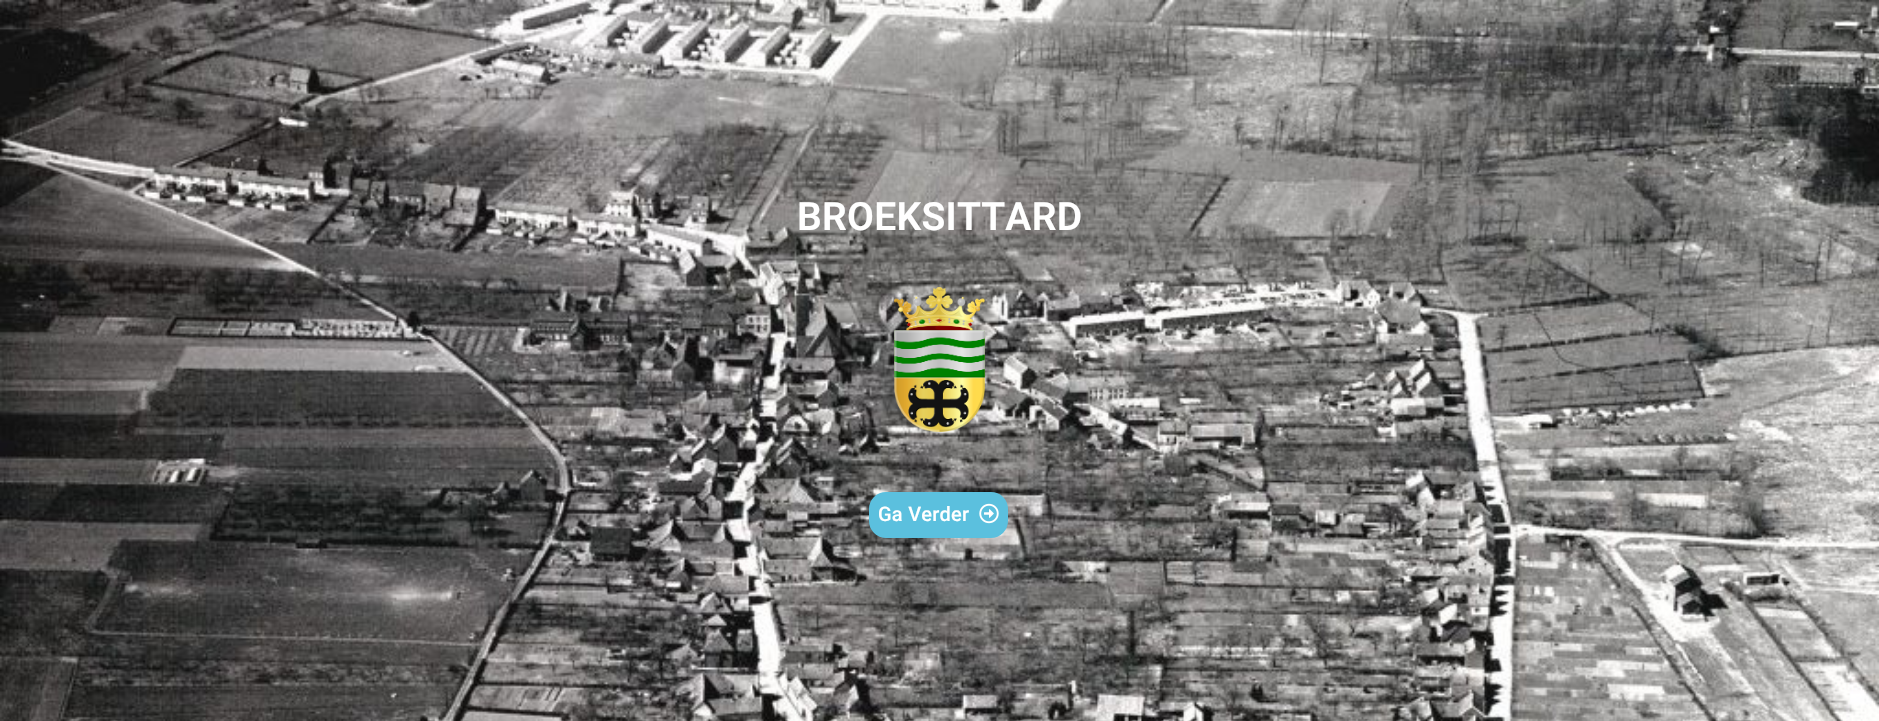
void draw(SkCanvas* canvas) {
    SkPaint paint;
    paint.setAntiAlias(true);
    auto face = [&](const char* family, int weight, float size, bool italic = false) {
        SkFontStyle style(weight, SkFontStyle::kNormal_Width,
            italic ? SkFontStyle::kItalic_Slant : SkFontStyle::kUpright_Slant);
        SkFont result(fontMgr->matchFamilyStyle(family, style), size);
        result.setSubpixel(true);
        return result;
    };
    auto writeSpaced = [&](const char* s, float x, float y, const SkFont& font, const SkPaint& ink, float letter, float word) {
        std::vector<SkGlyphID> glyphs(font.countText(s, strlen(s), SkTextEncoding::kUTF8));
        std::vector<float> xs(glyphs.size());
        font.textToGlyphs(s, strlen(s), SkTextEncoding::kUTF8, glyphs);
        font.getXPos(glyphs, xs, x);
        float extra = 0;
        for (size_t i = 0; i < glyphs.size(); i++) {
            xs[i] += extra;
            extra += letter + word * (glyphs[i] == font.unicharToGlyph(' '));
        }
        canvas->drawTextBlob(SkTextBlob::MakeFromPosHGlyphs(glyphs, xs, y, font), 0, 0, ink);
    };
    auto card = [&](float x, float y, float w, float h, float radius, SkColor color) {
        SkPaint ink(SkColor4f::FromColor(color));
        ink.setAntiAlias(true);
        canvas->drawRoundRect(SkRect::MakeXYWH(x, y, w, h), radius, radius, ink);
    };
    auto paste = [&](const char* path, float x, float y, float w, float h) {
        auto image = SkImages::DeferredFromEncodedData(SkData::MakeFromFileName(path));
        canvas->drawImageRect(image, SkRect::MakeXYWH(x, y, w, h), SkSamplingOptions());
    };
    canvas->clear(SK_ColorWHITE);
    paste("pic1.png", 0, 0, 1879, 721);
    auto kFont1 = face("Roboto", 600, 39);
    paint.setColor(SK_ColorWHITE);
    writeSpaced("BROEKSITTARD", 797, 230, kFont1, paint, 0.25f, 0);
    paste("pic2.png", 894, 287, 91, 145);
    card(869, 492, 139, 46, 17, SkColorSetRGB(91, 192, 222));
    auto kFont2 = face("Roboto", 500, 20);
    writeSpaced("Ga Verder", 878, 521, kFont2, paint, 0.25f, 0);
    paste("pic3.png", 979, 503, 20, 21);
}
